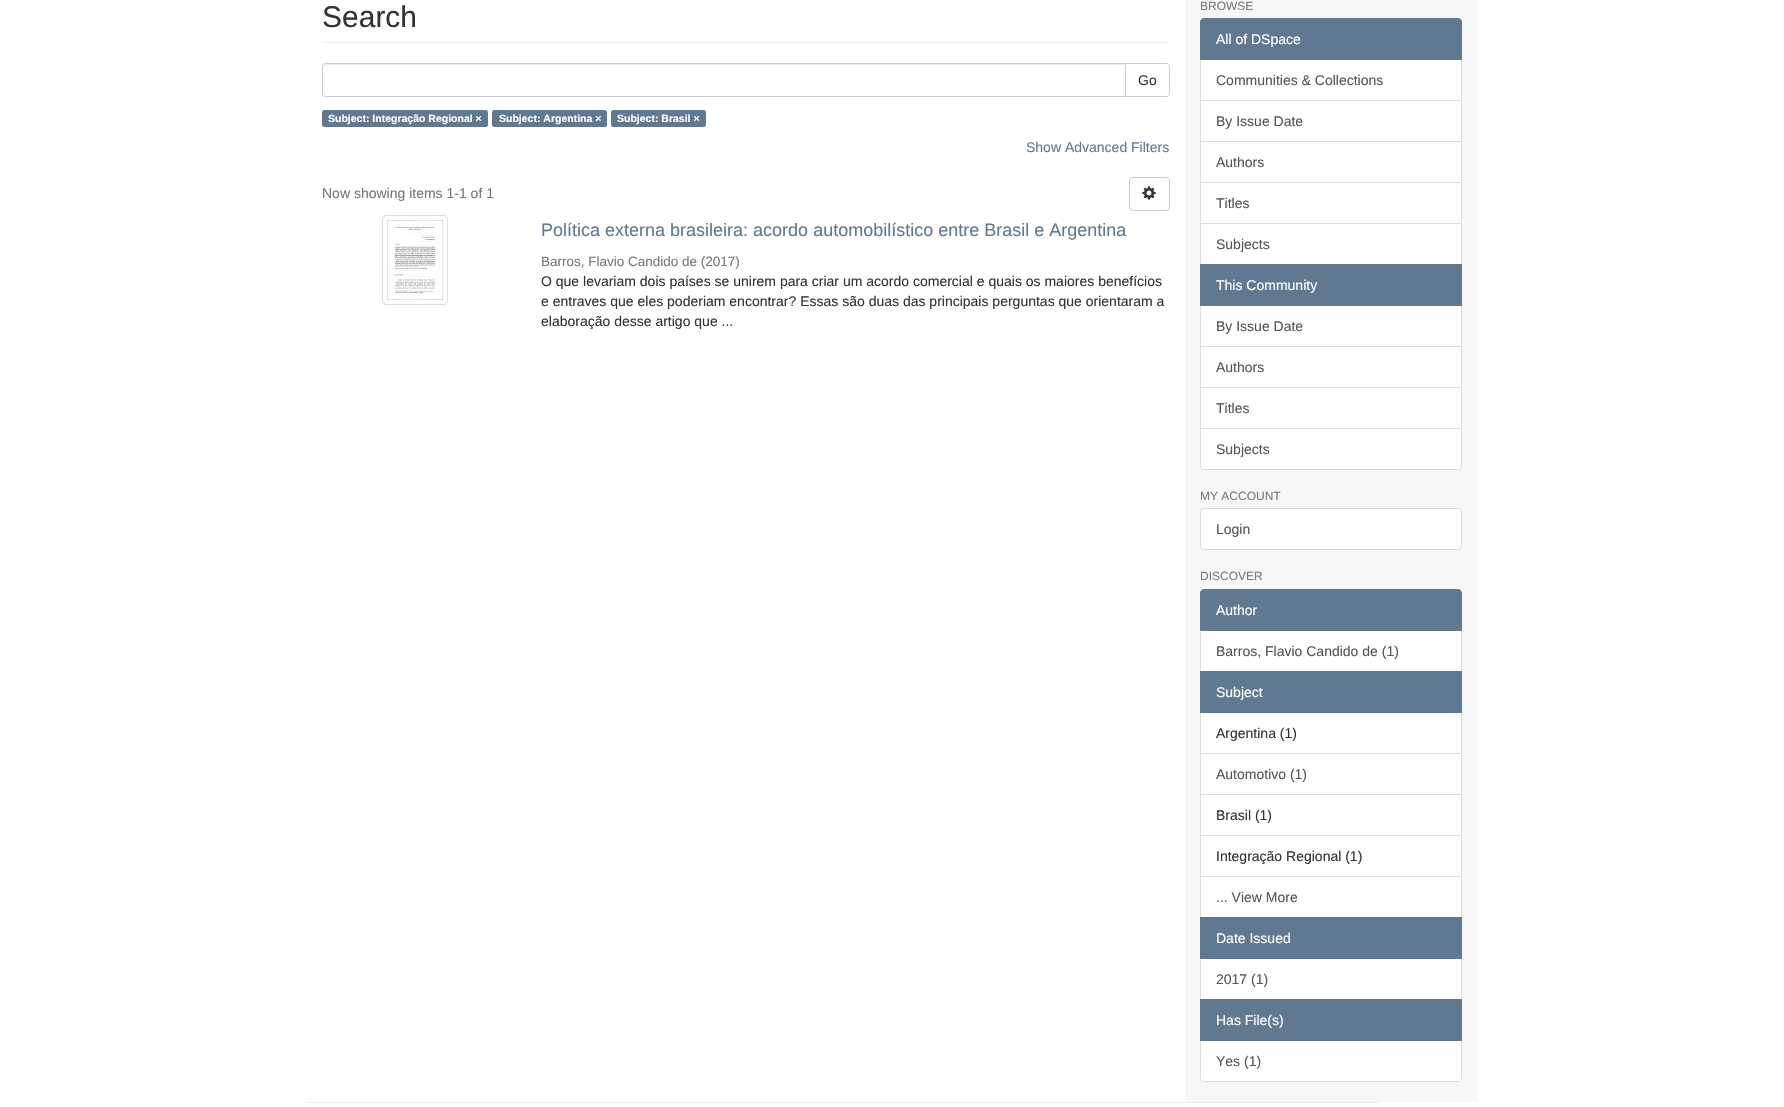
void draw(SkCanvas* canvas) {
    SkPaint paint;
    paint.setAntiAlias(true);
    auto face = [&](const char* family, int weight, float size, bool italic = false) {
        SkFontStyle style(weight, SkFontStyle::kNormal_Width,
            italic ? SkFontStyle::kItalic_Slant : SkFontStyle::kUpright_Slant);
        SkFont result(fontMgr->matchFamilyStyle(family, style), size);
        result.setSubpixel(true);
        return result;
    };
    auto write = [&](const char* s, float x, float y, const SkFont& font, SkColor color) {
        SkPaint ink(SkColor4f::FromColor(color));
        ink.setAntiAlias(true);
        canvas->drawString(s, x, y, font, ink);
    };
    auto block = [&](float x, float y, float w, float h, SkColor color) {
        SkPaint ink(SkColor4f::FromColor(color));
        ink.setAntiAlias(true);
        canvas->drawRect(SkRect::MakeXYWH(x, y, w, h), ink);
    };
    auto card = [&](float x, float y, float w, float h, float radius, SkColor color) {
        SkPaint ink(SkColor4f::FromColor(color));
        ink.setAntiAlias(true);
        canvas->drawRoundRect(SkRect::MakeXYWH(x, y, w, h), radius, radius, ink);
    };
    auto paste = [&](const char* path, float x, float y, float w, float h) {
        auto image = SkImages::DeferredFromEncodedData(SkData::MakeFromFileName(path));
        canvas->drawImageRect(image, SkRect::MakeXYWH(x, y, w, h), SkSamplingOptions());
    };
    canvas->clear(SK_ColorWHITE);
    block(1185, 0, 292, 1102, SkColorSetRGB(247, 247, 247));
    block(322, 42, 848, 1, SkColorSetRGB(238, 238, 238));
    auto kFont1 = face("Liberation Sans", 400, 30);
    write("Search", 322, 27, kFont1, SkColorSetRGB(51, 51, 51));
    paint.setStyle(SkPaint::kStroke_Style);
    paint.setStrokeWidth(1);
    paint.setColor(SkColorSetRGB(204, 204, 204));
    canvas->drawPath(SkPathBuilder().moveTo(1125.5f, 63.5f).lineTo(1166, 63.5f).cubicTo(1168, 63.5f, 1169.5f, 65, 1169.5f, 67).lineTo(1169.5f, 93).cubicTo(1169.5f, 95, 1168, 96.5f, 1166, 96.5f).lineTo(1125.5f, 96.5f).close().detach(), paint);
    paint.setStyle(SkPaint::kFill_Style);
    paint.setColor(SK_ColorWHITE);
    canvas->drawPath(SkPathBuilder().moveTo(326, 63).lineTo(1126, 63).lineTo(1126, 97).lineTo(326, 97).cubicTo(324, 97, 322, 95, 322, 93).lineTo(322, 67).cubicTo(322, 65, 324, 63, 326, 63).close().detach(), paint);
    paint.setColor(SkColorSetRGB(236, 236, 236));
    canvas->drawPath(SkPathBuilder().moveTo(326, 65).lineTo(1125, 65).lineTo(1125, 64).lineTo(326, 64).cubicTo(324, 64, 323, 66, 323, 68).cubicTo(323, 66, 324, 65, 326, 65).close().detach(), paint);
    paint.setStyle(SkPaint::kStroke_Style);
    paint.setColor(SkColorSetRGB(204, 204, 204));
    canvas->drawPath(SkPathBuilder().moveTo(326, 63.5f).lineTo(1125.5f, 63.5f).lineTo(1125.5f, 96.5f).lineTo(326, 96.5f).cubicTo(324, 96.5f, 322.5f, 95, 322.5f, 93).lineTo(322.5f, 67).cubicTo(322.5f, 65, 324, 63.5f, 326, 63.5f).close().detach(), paint);
    auto kFont2 = face("Liberation Sans", 400, 14);
    write("Go", 1138, 85, kFont2, SkColorSetRGB(51, 51, 51));
    card(322, 110, 166, 17, 2.5f, SkColorSetRGB(96, 120, 144));
    auto kFont3 = face("Liberation Sans", 700, 10.5f);
    write("Subject: Integração Regional ×", 328, 122, kFont3, SK_ColorWHITE);
    card(492, 110, 115, 17, 2.5f, SkColorSetRGB(96, 120, 144));
    write("Subject: Argentina ×", 499, 122, kFont3, SK_ColorWHITE);
    card(611, 110, 95, 17, 2.5f, SkColorSetRGB(96, 120, 144));
    write("Subject: Brasil ×", 617, 122, kFont3, SK_ColorWHITE);
    write("Show Advanced Filters", 1026, 152, kFont2, SkColorSetRGB(96, 120, 144));
    write("Now showing items 1-1 of 1", 322, 198, kFont2, SkColorSetRGB(119, 119, 119));
    canvas->drawRoundRect(SkRect::MakeXYWH(1129.5f, 177.5f, 40, 33), 3.5f, 3.5f, paint);
    paste("pic1.png", 1142, 186, 14, 14);
    paint.setColor(SkColorSetRGB(221, 221, 221));
    canvas->drawRoundRect(SkRect::MakeXYWH(382.5f, 215.5f, 65, 89), 3.5f, 3.5f, paint);
    paste("pic2.png", 387, 220, 56, 80);
    auto kFont4 = face("Liberation Sans", 400, 18);
    write("Política externa brasileira: acordo automobilístico entre Brasil e Argentina", 541, 236, kFont4, SkColorSetRGB(96, 120, 144));
    auto kFont5 = face("Liberation Sans", 400, 13.5f);
    write("Barros, Flavio Candido de (2017)", 541, 266, kFont5, SkColorSetRGB(119, 119, 119));
    write("O que levariam dois países se unirem para criar um acordo comercial e quais os maiores benefícios", 541, 286, kFont2, SkColorSetRGB(51, 51, 51));
    write("e entraves que eles poderiam encontrar? Essas são duas das principais perguntas que orientaram a", 541, 306, kFont2, SkColorSetRGB(51, 51, 51));
    write("elaboração desse artigo que ...", 541, 326, kFont2, SkColorSetRGB(51, 51, 51));
    auto kFont6 = face("Liberation Sans", 400, 12);
    write("BROWSE", 1200, 10, kFont6, SkColorSetRGB(119, 119, 119));
    paint.setStyle(SkPaint::kFill_Style);
    paint.setColor(SK_ColorWHITE);
    canvas->drawRect(SkRect::MakeXYWH(1200.5f, 59.5f, 261, 41), paint);
    paint.setStyle(SkPaint::kStroke_Style);
    paint.setColor(SkColorSetRGB(221, 221, 221));
    canvas->drawRect(SkRect::MakeXYWH(1200.5f, 59.5f, 261, 41), paint);
    paint.setStyle(SkPaint::kFill_Style);
    paint.setColor(SkColorSetRGB(96, 120, 144));
    canvas->drawPath(SkPathBuilder().moveTo(1204, 18.5f).lineTo(1458, 18.5f).cubicTo(1460, 18.5f, 1461.5f, 20, 1461.5f, 22).lineTo(1461.5f, 59.5f).lineTo(1200.5f, 59.5f).lineTo(1200.5f, 22).cubicTo(1200.5f, 20, 1202, 18.5f, 1204, 18.5f).close().detach(), paint);
    paint.setStyle(SkPaint::kStroke_Style);
    canvas->drawPath(SkPathBuilder().moveTo(1204, 18.5f).lineTo(1458, 18.5f).cubicTo(1460, 18.5f, 1461.5f, 20, 1461.5f, 22).lineTo(1461.5f, 59.5f).lineTo(1200.5f, 59.5f).lineTo(1200.5f, 22).cubicTo(1200.5f, 20, 1202, 18.5f, 1204, 18.5f).close().detach(), paint);
    write("All of DSpace", 1216, 44, kFont2, SK_ColorWHITE);
    write("Communities & Collections", 1216, 85, kFont2, SkColorSetRGB(85, 85, 85));
    paint.setStyle(SkPaint::kFill_Style);
    paint.setColor(SK_ColorWHITE);
    canvas->drawRect(SkRect::MakeXYWH(1200.5f, 100.5f, 261, 41), paint);
    paint.setStyle(SkPaint::kStroke_Style);
    paint.setColor(SkColorSetRGB(221, 221, 221));
    canvas->drawRect(SkRect::MakeXYWH(1200.5f, 100.5f, 261, 41), paint);
    write("By Issue Date", 1216, 126, kFont2, SkColorSetRGB(85, 85, 85));
    paint.setStyle(SkPaint::kFill_Style);
    paint.setColor(SK_ColorWHITE);
    canvas->drawRect(SkRect::MakeXYWH(1200.5f, 141.5f, 261, 41), paint);
    paint.setStyle(SkPaint::kStroke_Style);
    paint.setColor(SkColorSetRGB(221, 221, 221));
    canvas->drawRect(SkRect::MakeXYWH(1200.5f, 141.5f, 261, 41), paint);
    write("Authors", 1216, 167, kFont2, SkColorSetRGB(85, 85, 85));
    paint.setStyle(SkPaint::kFill_Style);
    paint.setColor(SK_ColorWHITE);
    canvas->drawRect(SkRect::MakeXYWH(1200.5f, 182.5f, 261, 41), paint);
    paint.setStyle(SkPaint::kStroke_Style);
    paint.setColor(SkColorSetRGB(221, 221, 221));
    canvas->drawRect(SkRect::MakeXYWH(1200.5f, 182.5f, 261, 41), paint);
    write("Titles", 1216, 208, kFont2, SkColorSetRGB(85, 85, 85));
    paint.setStyle(SkPaint::kFill_Style);
    paint.setColor(SK_ColorWHITE);
    canvas->drawRect(SkRect::MakeXYWH(1200.5f, 223.5f, 261, 41), paint);
    paint.setStyle(SkPaint::kStroke_Style);
    paint.setColor(SkColorSetRGB(221, 221, 221));
    canvas->drawRect(SkRect::MakeXYWH(1200.5f, 223.5f, 261, 41), paint);
    write("Subjects", 1216, 249, kFont2, SkColorSetRGB(85, 85, 85));
    paint.setStyle(SkPaint::kFill_Style);
    paint.setColor(SK_ColorWHITE);
    canvas->drawRect(SkRect::MakeXYWH(1200.5f, 305.5f, 261, 41), paint);
    paint.setStyle(SkPaint::kStroke_Style);
    paint.setColor(SkColorSetRGB(221, 221, 221));
    canvas->drawRect(SkRect::MakeXYWH(1200.5f, 305.5f, 261, 41), paint);
    block(1200, 264, 262, 42, SkColorSetRGB(96, 120, 144));
    write("This Community", 1216, 290, kFont2, SK_ColorWHITE);
    write("By Issue Date", 1216, 331, kFont2, SkColorSetRGB(85, 85, 85));
    paint.setStyle(SkPaint::kFill_Style);
    paint.setColor(SK_ColorWHITE);
    canvas->drawRect(SkRect::MakeXYWH(1200.5f, 346.5f, 261, 41), paint);
    paint.setStyle(SkPaint::kStroke_Style);
    paint.setColor(SkColorSetRGB(221, 221, 221));
    canvas->drawRect(SkRect::MakeXYWH(1200.5f, 346.5f, 261, 41), paint);
    write("Authors", 1216, 372, kFont2, SkColorSetRGB(85, 85, 85));
    paint.setStyle(SkPaint::kFill_Style);
    paint.setColor(SK_ColorWHITE);
    canvas->drawRect(SkRect::MakeXYWH(1200.5f, 387.5f, 261, 41), paint);
    paint.setStyle(SkPaint::kStroke_Style);
    paint.setColor(SkColorSetRGB(221, 221, 221));
    canvas->drawRect(SkRect::MakeXYWH(1200.5f, 387.5f, 261, 41), paint);
    write("Titles", 1216, 413, kFont2, SkColorSetRGB(85, 85, 85));
    paint.setStyle(SkPaint::kFill_Style);
    paint.setColor(SK_ColorWHITE);
    canvas->drawPath(SkPathBuilder().moveTo(1200.5f, 428.5f).lineTo(1461.5f, 428.5f).lineTo(1461.5f, 466).cubicTo(1461.5f, 468, 1460, 469.5f, 1458, 469.5f).lineTo(1204, 469.5f).cubicTo(1202, 469.5f, 1200.5f, 468, 1200.5f, 466).close().detach(), paint);
    paint.setStyle(SkPaint::kStroke_Style);
    paint.setColor(SkColorSetRGB(221, 221, 221));
    canvas->drawPath(SkPathBuilder().moveTo(1200.5f, 428.5f).lineTo(1461.5f, 428.5f).lineTo(1461.5f, 466).cubicTo(1461.5f, 468, 1460, 469.5f, 1458, 469.5f).lineTo(1204, 469.5f).cubicTo(1202, 469.5f, 1200.5f, 468, 1200.5f, 466).close().detach(), paint);
    write("Subjects", 1216, 454, kFont2, SkColorSetRGB(85, 85, 85));
    write("MY ACCOUNT", 1200, 500, kFont6, SkColorSetRGB(119, 119, 119));
    paint.setStyle(SkPaint::kFill_Style);
    paint.setColor(SK_ColorWHITE);
    canvas->drawRoundRect(SkRect::MakeXYWH(1200.5f, 508.5f, 261, 41), 3.5f, 3.5f, paint);
    paint.setStyle(SkPaint::kStroke_Style);
    paint.setColor(SkColorSetRGB(221, 221, 221));
    canvas->drawRoundRect(SkRect::MakeXYWH(1200.5f, 508.5f, 261, 41), 3.5f, 3.5f, paint);
    write("Login", 1216, 534, kFont2, SkColorSetRGB(85, 85, 85));
    write("DISCOVER", 1200, 580, kFont6, SkColorSetRGB(119, 119, 119));
    paint.setStyle(SkPaint::kFill_Style);
    paint.setColor(SK_ColorWHITE);
    canvas->drawRect(SkRect::MakeXYWH(1200.5f, 630.5f, 261, 41), paint);
    paint.setStyle(SkPaint::kStroke_Style);
    paint.setColor(SkColorSetRGB(221, 221, 221));
    canvas->drawRect(SkRect::MakeXYWH(1200.5f, 630.5f, 261, 41), paint);
    paint.setStyle(SkPaint::kFill_Style);
    paint.setColor(SkColorSetRGB(96, 120, 144));
    canvas->drawPath(SkPathBuilder().moveTo(1204, 589.5f).lineTo(1458, 589.5f).cubicTo(1460, 589.5f, 1461.5f, 591, 1461.5f, 593).lineTo(1461.5f, 630.5f).lineTo(1200.5f, 630.5f).lineTo(1200.5f, 593).cubicTo(1200.5f, 591, 1202, 589.5f, 1204, 589.5f).close().detach(), paint);
    paint.setStyle(SkPaint::kStroke_Style);
    canvas->drawPath(SkPathBuilder().moveTo(1204, 589.5f).lineTo(1458, 589.5f).cubicTo(1460, 589.5f, 1461.5f, 591, 1461.5f, 593).lineTo(1461.5f, 630.5f).lineTo(1200.5f, 630.5f).lineTo(1200.5f, 593).cubicTo(1200.5f, 591, 1202, 589.5f, 1204, 589.5f).close().detach(), paint);
    write("Author", 1216, 615, kFont2, SK_ColorWHITE);
    write("Barros, Flavio Candido de (1)", 1216, 656, kFont2, SkColorSetRGB(85, 85, 85));
    paint.setStyle(SkPaint::kFill_Style);
    paint.setColor(SK_ColorWHITE);
    canvas->drawRect(SkRect::MakeXYWH(1200.5f, 712.5f, 261, 41), paint);
    paint.setStyle(SkPaint::kStroke_Style);
    paint.setColor(SkColorSetRGB(221, 221, 221));
    canvas->drawRect(SkRect::MakeXYWH(1200.5f, 712.5f, 261, 41), paint);
    block(1200, 671, 262, 42, SkColorSetRGB(96, 120, 144));
    write("Subject", 1216, 697, kFont2, SK_ColorWHITE);
    write("Argentina (1)", 1216, 738, kFont2, SkColorSetRGB(51, 51, 51));
    paint.setStyle(SkPaint::kFill_Style);
    paint.setColor(SK_ColorWHITE);
    canvas->drawRect(SkRect::MakeXYWH(1200.5f, 753.5f, 261, 41), paint);
    paint.setStyle(SkPaint::kStroke_Style);
    paint.setColor(SkColorSetRGB(221, 221, 221));
    canvas->drawRect(SkRect::MakeXYWH(1200.5f, 753.5f, 261, 41), paint);
    write("Automotivo (1)", 1216, 779, kFont2, SkColorSetRGB(85, 85, 85));
    paint.setStyle(SkPaint::kFill_Style);
    paint.setColor(SK_ColorWHITE);
    canvas->drawRect(SkRect::MakeXYWH(1200.5f, 794.5f, 261, 41), paint);
    paint.setStyle(SkPaint::kStroke_Style);
    paint.setColor(SkColorSetRGB(221, 221, 221));
    canvas->drawRect(SkRect::MakeXYWH(1200.5f, 794.5f, 261, 41), paint);
    write("Brasil (1)", 1216, 820, kFont2, SkColorSetRGB(51, 51, 51));
    paint.setStyle(SkPaint::kFill_Style);
    paint.setColor(SK_ColorWHITE);
    canvas->drawRect(SkRect::MakeXYWH(1200.5f, 835.5f, 261, 41), paint);
    paint.setStyle(SkPaint::kStroke_Style);
    paint.setColor(SkColorSetRGB(221, 221, 221));
    canvas->drawRect(SkRect::MakeXYWH(1200.5f, 835.5f, 261, 41), paint);
    write("Integração Regional (1)", 1216, 861, kFont2, SkColorSetRGB(51, 51, 51));
    paint.setStyle(SkPaint::kFill_Style);
    paint.setColor(SK_ColorWHITE);
    canvas->drawRect(SkRect::MakeXYWH(1200.5f, 876.5f, 261, 41), paint);
    paint.setStyle(SkPaint::kStroke_Style);
    paint.setColor(SkColorSetRGB(221, 221, 221));
    canvas->drawRect(SkRect::MakeXYWH(1200.5f, 876.5f, 261, 41), paint);
    write("... View More", 1216, 902, kFont2, SkColorSetRGB(85, 85, 85));
    paint.setStyle(SkPaint::kFill_Style);
    paint.setColor(SK_ColorWHITE);
    canvas->drawRect(SkRect::MakeXYWH(1200.5f, 958.5f, 261, 41), paint);
    paint.setStyle(SkPaint::kStroke_Style);
    paint.setColor(SkColorSetRGB(221, 221, 221));
    canvas->drawRect(SkRect::MakeXYWH(1200.5f, 958.5f, 261, 41), paint);
    block(1200, 917, 262, 42, SkColorSetRGB(96, 120, 144));
    write("Date Issued", 1216, 943, kFont2, SK_ColorWHITE);
    write("2017 (1)", 1216, 984, kFont2, SkColorSetRGB(85, 85, 85));
    paint.setStyle(SkPaint::kFill_Style);
    paint.setColor(SK_ColorWHITE);
    canvas->drawPath(SkPathBuilder().moveTo(1200.5f, 1040.5f).lineTo(1461.5f, 1040.5f).lineTo(1461.5f, 1078).cubicTo(1461.5f, 1080, 1460, 1081.5f, 1458, 1081.5f).lineTo(1204, 1081.5f).cubicTo(1202, 1081.5f, 1200.5f, 1080, 1200.5f, 1078).close().detach(), paint);
    paint.setStyle(SkPaint::kStroke_Style);
    paint.setColor(SkColorSetRGB(221, 221, 221));
    canvas->drawPath(SkPathBuilder().moveTo(1200.5f, 1040.5f).lineTo(1461.5f, 1040.5f).lineTo(1461.5f, 1078).cubicTo(1461.5f, 1080, 1460, 1081.5f, 1458, 1081.5f).lineTo(1204, 1081.5f).cubicTo(1202, 1081.5f, 1200.5f, 1080, 1200.5f, 1078).close().detach(), paint);
    block(1200, 999, 262, 42, SkColorSetRGB(96, 120, 144));
    write("Has File(s)", 1216, 1025, kFont2, SK_ColorWHITE);
    write("Yes (1)", 1216, 1066, kFont2, SkColorSetRGB(85, 85, 85));
    block(307, 1102, 1073, 1, SkColorSetRGB(238, 238, 238));
}
